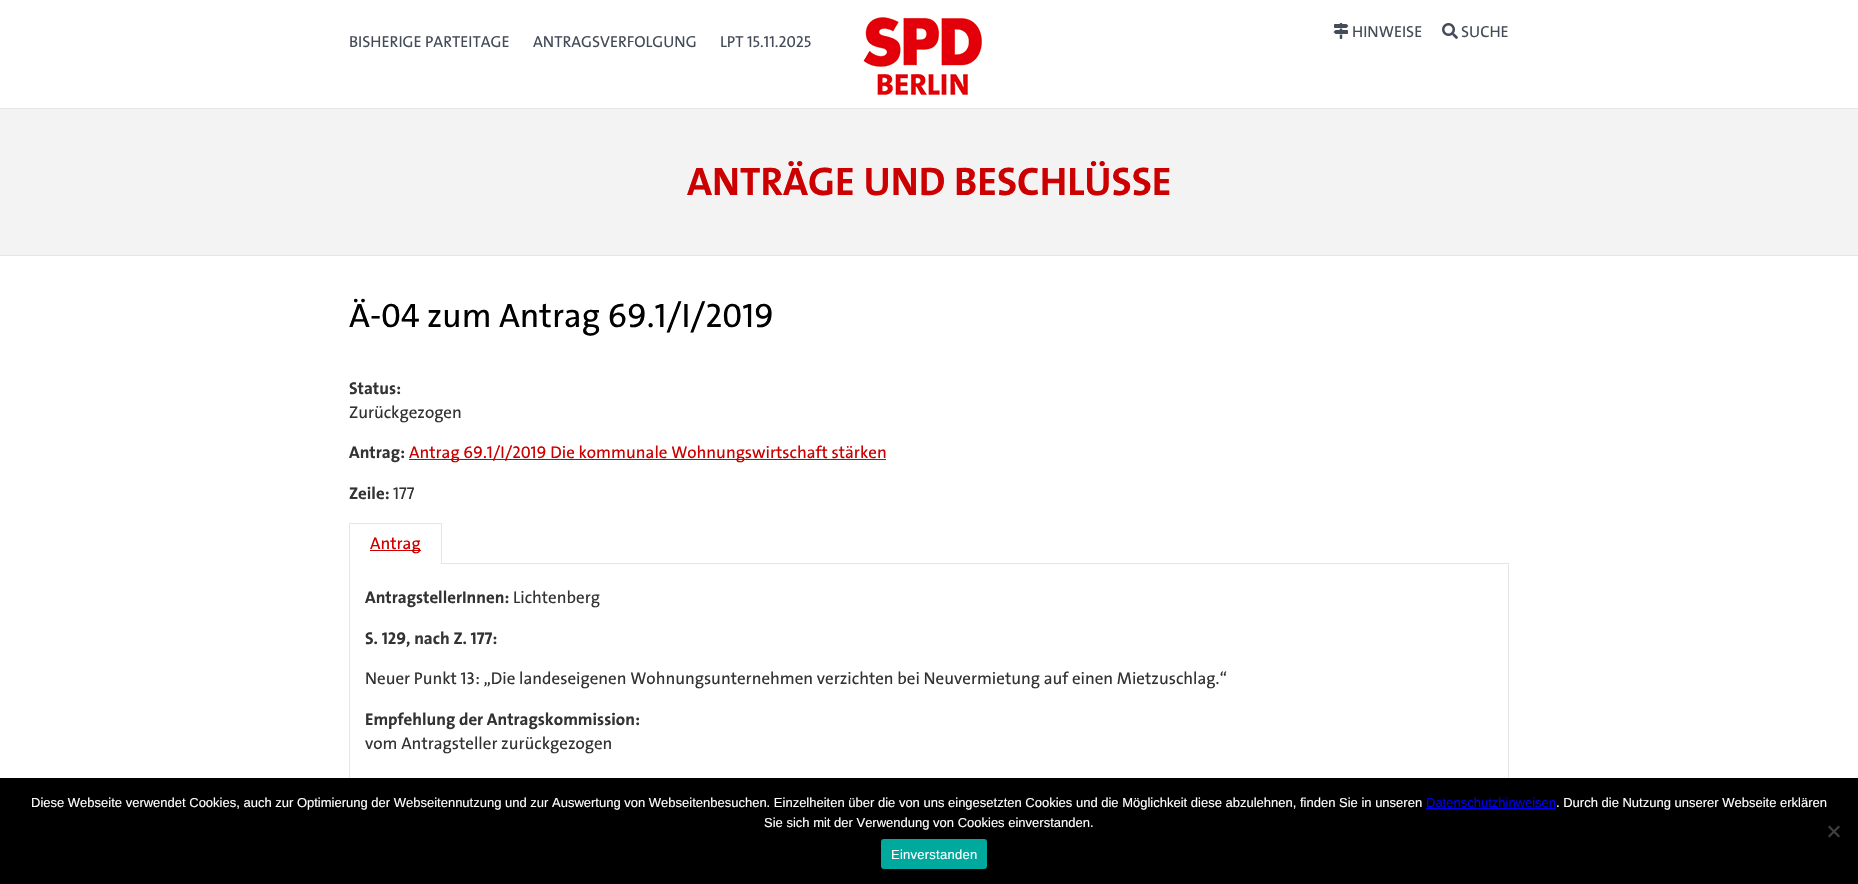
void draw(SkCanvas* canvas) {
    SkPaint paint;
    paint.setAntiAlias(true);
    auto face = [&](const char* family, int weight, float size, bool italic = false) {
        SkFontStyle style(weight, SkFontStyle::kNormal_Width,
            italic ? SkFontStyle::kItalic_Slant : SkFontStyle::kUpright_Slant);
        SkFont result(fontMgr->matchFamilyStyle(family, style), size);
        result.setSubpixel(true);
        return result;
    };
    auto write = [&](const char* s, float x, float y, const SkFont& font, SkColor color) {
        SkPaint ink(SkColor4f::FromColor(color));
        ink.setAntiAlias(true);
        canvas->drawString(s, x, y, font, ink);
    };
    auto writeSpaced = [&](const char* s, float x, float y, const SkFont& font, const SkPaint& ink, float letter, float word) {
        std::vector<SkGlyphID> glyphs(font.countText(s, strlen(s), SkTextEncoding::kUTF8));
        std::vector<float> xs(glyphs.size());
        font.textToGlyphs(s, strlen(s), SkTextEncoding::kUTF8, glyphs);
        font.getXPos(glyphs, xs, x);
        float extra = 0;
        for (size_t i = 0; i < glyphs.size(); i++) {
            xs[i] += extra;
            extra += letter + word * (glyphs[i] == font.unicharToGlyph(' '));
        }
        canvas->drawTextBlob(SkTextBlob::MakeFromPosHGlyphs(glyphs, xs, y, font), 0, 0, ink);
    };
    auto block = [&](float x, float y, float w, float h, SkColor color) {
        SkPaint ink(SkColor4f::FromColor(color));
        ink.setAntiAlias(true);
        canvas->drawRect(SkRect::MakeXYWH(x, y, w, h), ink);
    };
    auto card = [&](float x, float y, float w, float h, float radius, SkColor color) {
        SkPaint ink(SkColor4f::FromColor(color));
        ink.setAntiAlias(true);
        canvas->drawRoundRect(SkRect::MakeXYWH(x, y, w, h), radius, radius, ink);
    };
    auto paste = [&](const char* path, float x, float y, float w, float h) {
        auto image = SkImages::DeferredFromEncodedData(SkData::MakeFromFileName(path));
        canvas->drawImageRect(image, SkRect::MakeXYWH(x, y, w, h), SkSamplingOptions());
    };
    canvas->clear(SK_ColorWHITE);
    block(0, 109, 1858, 146, SkColorSetRGB(243, 243, 243));
    block(0, 108, 1858, 1, SkColorSetRGB(230, 230, 230));
    paste("pic1.png", 863, 17, 119, 78);
    paste("pic2.png", 1333, 23, 16, 16);
    auto kFont1 = face("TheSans", 500, 16);
    write("HINWEISE", 1352, 37, kFont1, SkColorSetRGB(69, 76, 89));
    paste("pic3.png", 1442, 23, 16, 16);
    write("SUCHE", 1461, 37, kFont1, SkColorSetRGB(69, 76, 89));
    write("BISHERIGE PARTEITAGE", 349, 47, kFont1, SkColorSetRGB(69, 76, 89));
    write("ANTRAGSVERFOLGUNG", 533, 47, kFont1, SkColorSetRGB(69, 76, 89));
    write("LPT 15.11.2025", 720, 47, kFont1, SkColorSetRGB(69, 76, 89));
    auto kFont2 = face("TheSans", 700, 40);
    write("ANTRÄGE UND BESCHLÜSSE", 687, 195, kFont2, SkColorSetRGB(204, 0, 0));
    block(0, 255, 1858, 1, SkColorSetRGB(229, 229, 229));
    auto kFont3 = face("TheSans", 500, 34);
    write("Ä-04 zum Antrag 69.1/I/2019", 349, 327, kFont3, SK_ColorBLACK);
    auto kFont4 = face("TheSans", 700, 17);
    write("Status:", 349, 394, kFont4, SkColorSetRGB(51, 51, 51));
    auto kFont5 = face("TheSans", 500, 17);
    write("Zurückgezogen", 349, 418, kFont5, SkColorSetRGB(51, 51, 51));
    write("Antrag:", 349, 458, kFont4, SkColorSetRGB(51, 51, 51));
    block(409, 459, 477, 1, SkColorSetRGB(204, 0, 0));
    write("Antrag 69.1/I/2019 Die kommunale Wohnungswirtschaft stärken", 409, 458, kFont5, SkColorSetRGB(204, 0, 0));
    write("Zeile:", 349, 499, kFont4, SkColorSetRGB(51, 51, 51));
    write("177", 393, 499, kFont5, SkColorSetRGB(51, 51, 51));
    paint.setStyle(SkPaint::kStroke_Style);
    paint.setStrokeWidth(1);
    paint.setColor(SkColorSetRGB(230, 230, 230));
    canvas->drawRect(SkRect::MakeXYWH(349.5f, 563.5f, 1159, 215), paint);
    block(349, 563, 93, 1, SK_ColorWHITE);
    paint.setStyle(SkPaint::kFill_Style);
    canvas->drawPath(SkPathBuilder().moveTo(349, 523).lineTo(442, 523).lineTo(441, 524).lineTo(350, 524).close().detach(), paint);
    paint.setColor(SkColorSetARGB(26, 0, 0, 0));
    canvas->drawPath(SkPathBuilder().moveTo(442, 523).lineTo(442, 564).lineTo(441, 564).lineTo(441, 524).close().detach(), paint);
    canvas->drawPath(SkPathBuilder().moveTo(349, 564).lineTo(349, 523).lineTo(350, 524).lineTo(350, 564).close().detach(), paint);
    block(370, 550, 51, 1, SkColorSetRGB(204, 0, 0));
    write("Antrag", 370, 549, kFont5, SkColorSetRGB(204, 0, 0));
    write("AntragstellerInnen:", 365, 603, kFont4, SkColorSetRGB(51, 51, 51));
    write("Lichtenberg", 513, 603, kFont5, SkColorSetRGB(51, 51, 51));
    write("S. 129, nach Z. 177:", 365, 644, kFont4, SkColorSetRGB(51, 51, 51));
    write("Neuer Punkt 13: „Die landeseigenen Wohnungsunternehmen verzichten bei Neuvermietung auf einen Mietzuschlag.“", 365, 684, kFont5, SkColorSetRGB(51, 51, 51));
    write("Empfehlung der Antragskommission:", 365, 725, kFont4, SkColorSetRGB(51, 51, 51));
    write("vom Antragsteller zurückgezogen", 365, 749, kFont5, SkColorSetRGB(51, 51, 51));
    block(0, 778, 1858, 106, SK_ColorBLACK);
    auto kFont6 = face("Liberation Sans", 400, 13);
    write("Diese Webseite verwendet Cookies, auch zur Optimierung der Webseitennutzung und zur Auswertung von Webseitenbesuchen. Einzelheiten über die von uns eingesetzten Cookies und die Möglichkeit diese abzulehnen, finden Sie in unseren", 31, 807, kFont6, SK_ColorWHITE);
    write("Datenschutzhinweisen", 1426, 807, kFont6, SkColorSetRGB(0, 0, 238));
    block(1426, 808, 130, 1, SkColorSetRGB(0, 0, 238));
    write(". Durch die Nutzung unserer Webseite erklären", 1556, 807, kFont6, SK_ColorWHITE);
    write("Sie sich mit der Verwendung von Cookies einverstanden.", 764, 827, kFont6, SK_ColorWHITE);
    paint.setColor(SkColorSetRGB(64, 64, 64));
    canvas->drawPath(SkPathBuilder().moveTo(1838.5f, 825.5f).lineTo(1840, 827).lineTo(1829.5f, 837.5f).lineTo(1828, 836).close().detach(), paint);
    canvas->drawPath(SkPathBuilder().moveTo(1828, 827).lineTo(1829.5f, 825.5f).lineTo(1840, 836).lineTo(1838.5f, 837.5f).close().detach(), paint);
    card(881, 839, 106, 30, 3, SkColorSetRGB(0, 169, 157));
    paint.setColor(SK_ColorWHITE);
    writeSpaced("Einverstanden", 891, 859, kFont6, paint, 0.25f, 0);
}
